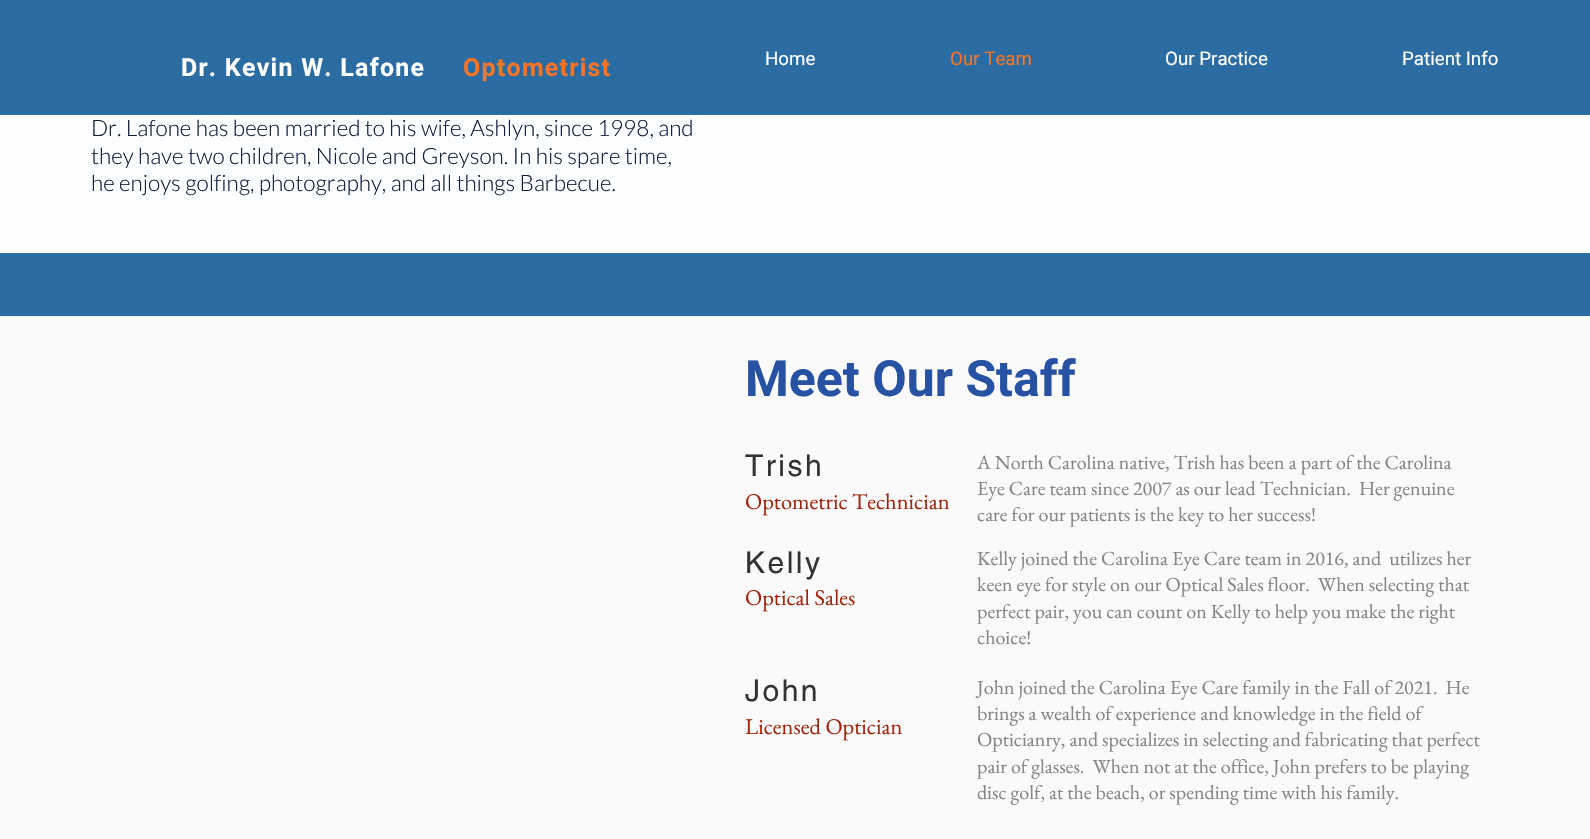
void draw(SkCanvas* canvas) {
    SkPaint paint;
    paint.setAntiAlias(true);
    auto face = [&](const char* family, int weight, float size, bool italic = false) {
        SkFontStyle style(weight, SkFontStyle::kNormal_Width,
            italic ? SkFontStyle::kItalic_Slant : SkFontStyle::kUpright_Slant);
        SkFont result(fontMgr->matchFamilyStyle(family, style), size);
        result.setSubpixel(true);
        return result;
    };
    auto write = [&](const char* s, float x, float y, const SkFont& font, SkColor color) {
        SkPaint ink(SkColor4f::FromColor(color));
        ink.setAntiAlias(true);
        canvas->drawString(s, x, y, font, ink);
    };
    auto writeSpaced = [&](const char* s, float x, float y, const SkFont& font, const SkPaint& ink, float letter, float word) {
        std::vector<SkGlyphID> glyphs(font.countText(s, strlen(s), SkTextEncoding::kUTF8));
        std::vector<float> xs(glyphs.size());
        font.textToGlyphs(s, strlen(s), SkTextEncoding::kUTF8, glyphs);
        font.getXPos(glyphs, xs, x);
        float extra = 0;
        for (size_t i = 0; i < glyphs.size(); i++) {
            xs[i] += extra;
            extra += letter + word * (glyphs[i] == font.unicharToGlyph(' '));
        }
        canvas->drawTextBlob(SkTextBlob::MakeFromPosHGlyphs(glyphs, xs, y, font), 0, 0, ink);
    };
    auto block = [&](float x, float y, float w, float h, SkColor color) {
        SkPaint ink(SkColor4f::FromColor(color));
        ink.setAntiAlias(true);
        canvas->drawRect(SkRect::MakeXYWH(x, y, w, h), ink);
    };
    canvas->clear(SkColorSetRGB(43, 108, 163));
    auto kFont1 = face("Roboto", 700, 25);
    paint.setColor(SK_ColorWHITE);
    writeSpaced("Dr. Kevin W. Lafone", 181, 76, kFont1, paint, 1.25f, 0);
    paint.setColor(SkColorSetRGB(249, 116, 37));
    writeSpaced("Optometrist", 463, 76, kFont1, paint, 1.25f, 0);
    auto kFont2 = face("Roboto", 400, 18.75f);
    write("Home", 765, 65, kFont2, SK_ColorWHITE);
    write("Our Team", 950, 65, kFont2, SkColorSetRGB(249, 116, 37));
    write("Our Practice", 1165, 65, kFont2, SK_ColorWHITE);
    write("Patient Info", 1402, 65, kFont2, SK_ColorWHITE);
    block(0, 115, 1590, 138, SkColorSetRGB(252, 253, 255));
    auto kFont3 = face("Lato", 300, 22.5f);
    write("Dr. Lafone has been married to his wife, Ashlyn, since 1998, and", 91, 136, kFont3, SkColorSetRGB(13, 27, 54));
    write("they have two children, Nicole and Greyson. In his spare time,", 91, 164, kFont3, SkColorSetRGB(13, 27, 54));
    write("he enjoys golfing, photography, and all things Barbecue.", 91, 191, kFont3, SkColorSetRGB(13, 27, 54));
    block(0, 316, 1590, 523, SkColorSetRGB(250, 250, 250));
    auto kFont4 = face("Roboto", 700, 50);
    write("Meet Our Staff", 745, 396, kFont4, SkColorSetRGB(39, 81, 163));
    auto kFont5 = face("helvetica", 400, 30);
    paint.setColor(SkColorSetRGB(51, 51, 51));
    writeSpaced("Trish", 745, 476, kFont5, paint, 2.5f, 0);
    auto kFont6 = face("EB Garamond", 400, 20);
    write("A North Carolina native, Trish has been a part of the Carolina", 977, 469, kFont6, SkColorSetRGB(133, 133, 133));
    write("Eye Care team since 2007 as our lead Technician.  Her genuine", 977, 495, kFont6, SkColorSetRGB(133, 133, 133));
    write("care for our patients is the key to her success!", 977, 521, kFont6, SkColorSetRGB(133, 133, 133));
    auto kFont7 = face("EB Garamond", 400, 22.5f);
    write("Optometric Technician", 745, 509, kFont7, SkColorSetRGB(162, 35, 10));
    writeSpaced("Kelly", 745, 573, kFont5, paint, 2.5f, 0);
    write("Kelly joined the Carolina Eye Care team in 2016, and  utilizes her", 977, 565, kFont6, SkColorSetRGB(133, 133, 133));
    write("keen eye for style on our Optical Sales floor.  When selecting that", 977, 591, kFont6, SkColorSetRGB(133, 133, 133));
    write("perfect pair, you can count on Kelly to help you make the right", 977, 618, kFont6, SkColorSetRGB(133, 133, 133));
    write("choice!", 977, 644, kFont6, SkColorSetRGB(133, 133, 133));
    write("Optical Sales", 745, 605, kFont7, SkColorSetRGB(162, 35, 10));
    writeSpaced("John", 745, 701, kFont5, paint, 2.5f, 0);
    write("John joined the Carolina Eye Care family in the Fall of 2021.  He", 977, 694, kFont6, SkColorSetRGB(133, 133, 133));
    write("brings a wealth of experience and knowledge in the field of", 977, 720, kFont6, SkColorSetRGB(133, 133, 133));
    write("Opticianry, and specializes in selecting and fabricating that perfect", 977, 746, kFont6, SkColorSetRGB(133, 133, 133));
    write("pair of glasses.  When not at the office, John prefers to be playing", 977, 773, kFont6, SkColorSetRGB(133, 133, 133));
    write("disc golf, at the beach, or spending time with his family.", 977, 799, kFont6, SkColorSetRGB(133, 133, 133));
    write("Licensed Optician", 745, 734, kFont7, SkColorSetRGB(162, 35, 10));
}
